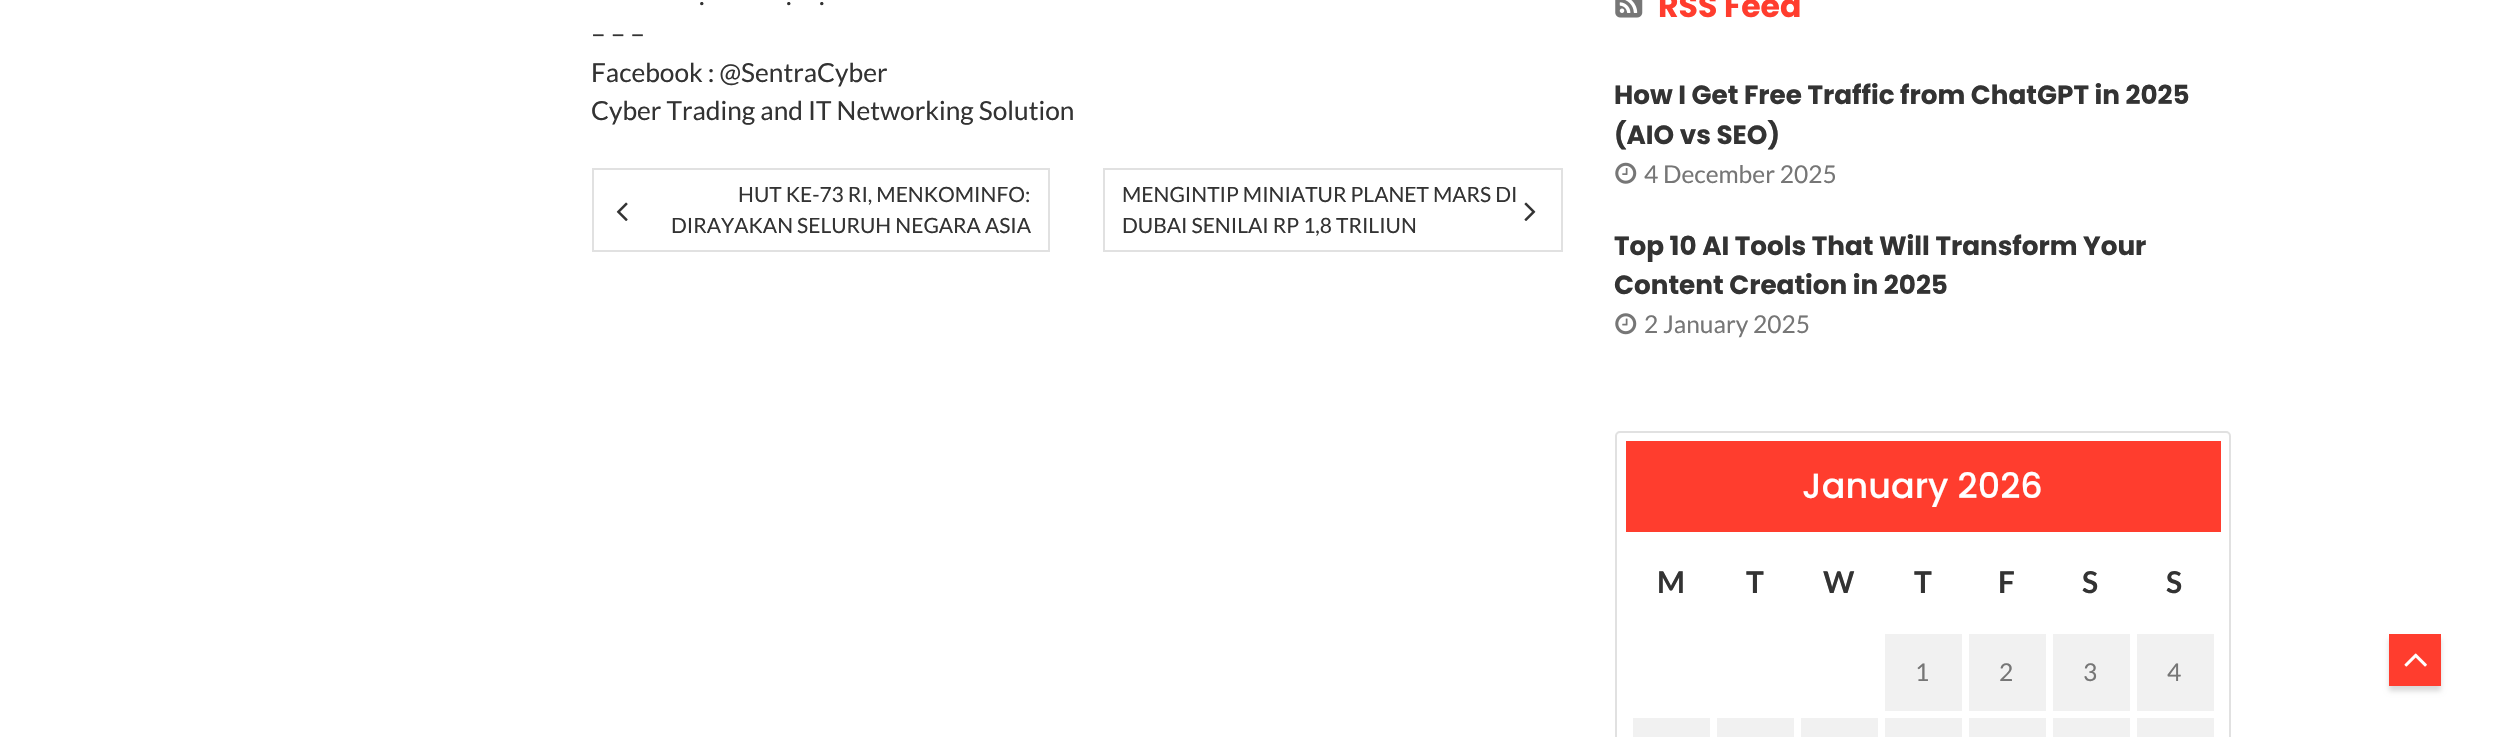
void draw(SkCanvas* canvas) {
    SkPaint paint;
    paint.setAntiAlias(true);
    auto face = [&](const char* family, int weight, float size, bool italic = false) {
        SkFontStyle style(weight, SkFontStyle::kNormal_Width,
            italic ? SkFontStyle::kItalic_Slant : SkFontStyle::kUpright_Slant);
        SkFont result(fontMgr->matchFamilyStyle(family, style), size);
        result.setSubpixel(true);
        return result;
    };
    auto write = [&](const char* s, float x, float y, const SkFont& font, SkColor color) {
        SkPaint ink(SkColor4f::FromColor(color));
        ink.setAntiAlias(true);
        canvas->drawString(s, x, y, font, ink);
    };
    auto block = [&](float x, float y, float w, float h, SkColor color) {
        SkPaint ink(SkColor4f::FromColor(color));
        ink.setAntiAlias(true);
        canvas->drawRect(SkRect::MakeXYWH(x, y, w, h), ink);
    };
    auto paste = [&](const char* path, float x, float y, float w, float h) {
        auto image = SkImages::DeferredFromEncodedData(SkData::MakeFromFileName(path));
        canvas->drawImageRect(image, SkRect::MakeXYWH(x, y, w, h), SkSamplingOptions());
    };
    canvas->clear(SK_ColorWHITE);
    auto kFont1 = face("Lato", 400, 26.25f);
    write(".", 699, 5, kFont1, SkColorSetRGB(51, 51, 51));
    write(".", 786, 5, kFont1, SkColorSetRGB(51, 51, 51));
    write(".", 819, 5, kFont1, SkColorSetRGB(51, 51, 51));
    write("– – –", 591, 43, kFont1, SkColorSetRGB(51, 51, 51));
    write("Facebook : @SentraCyber", 591, 82, kFont1, SkColorSetRGB(51, 51, 51));
    canvas->save();
    canvas->clipRect(SkRect::MakeXYWH(592, 0, 971, 130));
    write("Cyber Trading and IT Networking Solution", 591, 120, kFont1, SkColorSetRGB(51, 51, 51));
    canvas->restore();
    paint.setStyle(SkPaint::kStroke_Style);
    paint.setStrokeWidth(2);
    paint.setColor(SkColorSetRGB(225, 225, 225));
    canvas->drawRect(SkRect::MakeXYWH(593, 169, 456, 82), paint);
    paste("pic1.png", 616, 202, 12, 19);
    auto kFont2 = face("Lato", 400, 21);
    write("HUT KE-73 RI, MENKOMINFO:", 738, 202, kFont2, SkColorSetRGB(51, 51, 51));
    write("DIRAYAKAN SELURUH NEGARA ASIA", 671, 233, kFont2, SkColorSetRGB(51, 51, 51));
    canvas->drawRect(SkRect::MakeXYWH(1104, 169, 458, 82), paint);
    write("MENGINTIP MINIATUR PLANET MARS DI", 1122, 202, kFont2, SkColorSetRGB(51, 51, 51));
    write("DUBAI SENILAI RP 1,8 TRILIUN", 1122, 233, kFont2, SkColorSetRGB(51, 51, 51));
    paste("pic2.png", 1524, 202, 12, 19);
    paste("pic3.png", 1615, 0, 28, 18);
    auto kFont3 = face("Poppins", 700, 31.5f);
    write("RSS Feed", 1658, 17, kFont3, SkColorSetRGB(255, 61, 46));
    auto kFont4 = face("Poppins", 700, 26.25f);
    write("How I Get Free Traffic from ChatGPT in 2025", 1614, 104, kFont4, SkColorSetRGB(51, 51, 51));
    write("(AIO vs SEO)", 1614, 144, kFont4, SkColorSetRGB(51, 51, 51));
    paste("pic4.png", 1615, 162, 22, 22);
    auto kFont5 = face("Lato", 400, 24.5f);
    write("4 December 2025", 1644, 183, kFont5, SkColorSetRGB(118, 118, 118));
    write("Top 10 AI Tools That Will Transform Your", 1614, 255, kFont4, SkColorSetRGB(51, 51, 51));
    write("Content Creation in 2025", 1614, 294, kFont4, SkColorSetRGB(51, 51, 51));
    paste("pic5.png", 1615, 313, 22, 22);
    write("2 January 2025", 1644, 333, kFont5, SkColorSetRGB(118, 118, 118));
    canvas->drawRoundRect(SkRect::MakeXYWH(1616, 432, 614, 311), 4, 4, paint);
    block(1626, 441, 595, 91, SkColorSetRGB(255, 61, 46));
    auto kFont6 = face("Poppins", 500, 35);
    write("January 2026", 1802, 498, kFont6, SK_ColorWHITE);
    auto kFont7 = face("Lato", 700, 30);
    write("M", 1657, 593, kFont7, SkColorSetRGB(51, 51, 51));
    write("T", 1746, 593, kFont7, SkColorSetRGB(51, 51, 51));
    write("W", 1823, 593, kFont7, SkColorSetRGB(51, 51, 51));
    write("T", 1914, 593, kFont7, SkColorSetRGB(51, 51, 51));
    write("F", 1998, 593, kFont7, SkColorSetRGB(51, 51, 51));
    write("S", 2082, 593, kFont7, SkColorSetRGB(51, 51, 51));
    write("S", 2166, 593, kFont7, SkColorSetRGB(51, 51, 51));
    block(1885, 634, 77, 77, SkColorSetRGB(241, 241, 241));
    write("1", 1915, 681, kFont5, SkColorSetRGB(118, 118, 118));
    block(1969, 634, 77, 77, SkColorSetRGB(241, 241, 241));
    write("2", 1999, 681, kFont5, SkColorSetRGB(118, 118, 118));
    block(2053, 634, 77, 77, SkColorSetRGB(241, 241, 241));
    write("3", 2083, 681, kFont5, SkColorSetRGB(118, 118, 118));
    block(2137, 634, 77, 77, SkColorSetRGB(241, 241, 241));
    write("4", 2167, 681, kFont5, SkColorSetRGB(118, 118, 118));
    block(1633, 718, 77, 19, SkColorSetRGB(241, 241, 241));
    block(1717, 718, 77, 19, SkColorSetRGB(241, 241, 241));
    block(1801, 718, 77, 19, SkColorSetRGB(241, 241, 241));
    block(1885, 718, 77, 19, SkColorSetRGB(241, 241, 241));
    block(1969, 718, 77, 19, SkColorSetRGB(241, 241, 241));
    block(2053, 718, 77, 19, SkColorSetRGB(241, 241, 241));
    block(2137, 718, 77, 19, SkColorSetRGB(241, 241, 241));
    paint.setStyle(SkPaint::kFill_Style);
    paint.setColor(SkColorSetARGB(38, 0, 0, 0));
    paint.setMaskFilter(SkMaskFilter::MakeBlur(kNormal_SkBlurStyle, 2.5f));
    canvas->drawRect(SkRect::MakeXYWH(2389, 639, 52, 52), paint);
    paint.setMaskFilter(nullptr);
    block(2389, 634, 52, 52, SkColorSetRGB(255, 61, 46));
    paste("pic6.png", 2404, 653, 23, 14);
}
